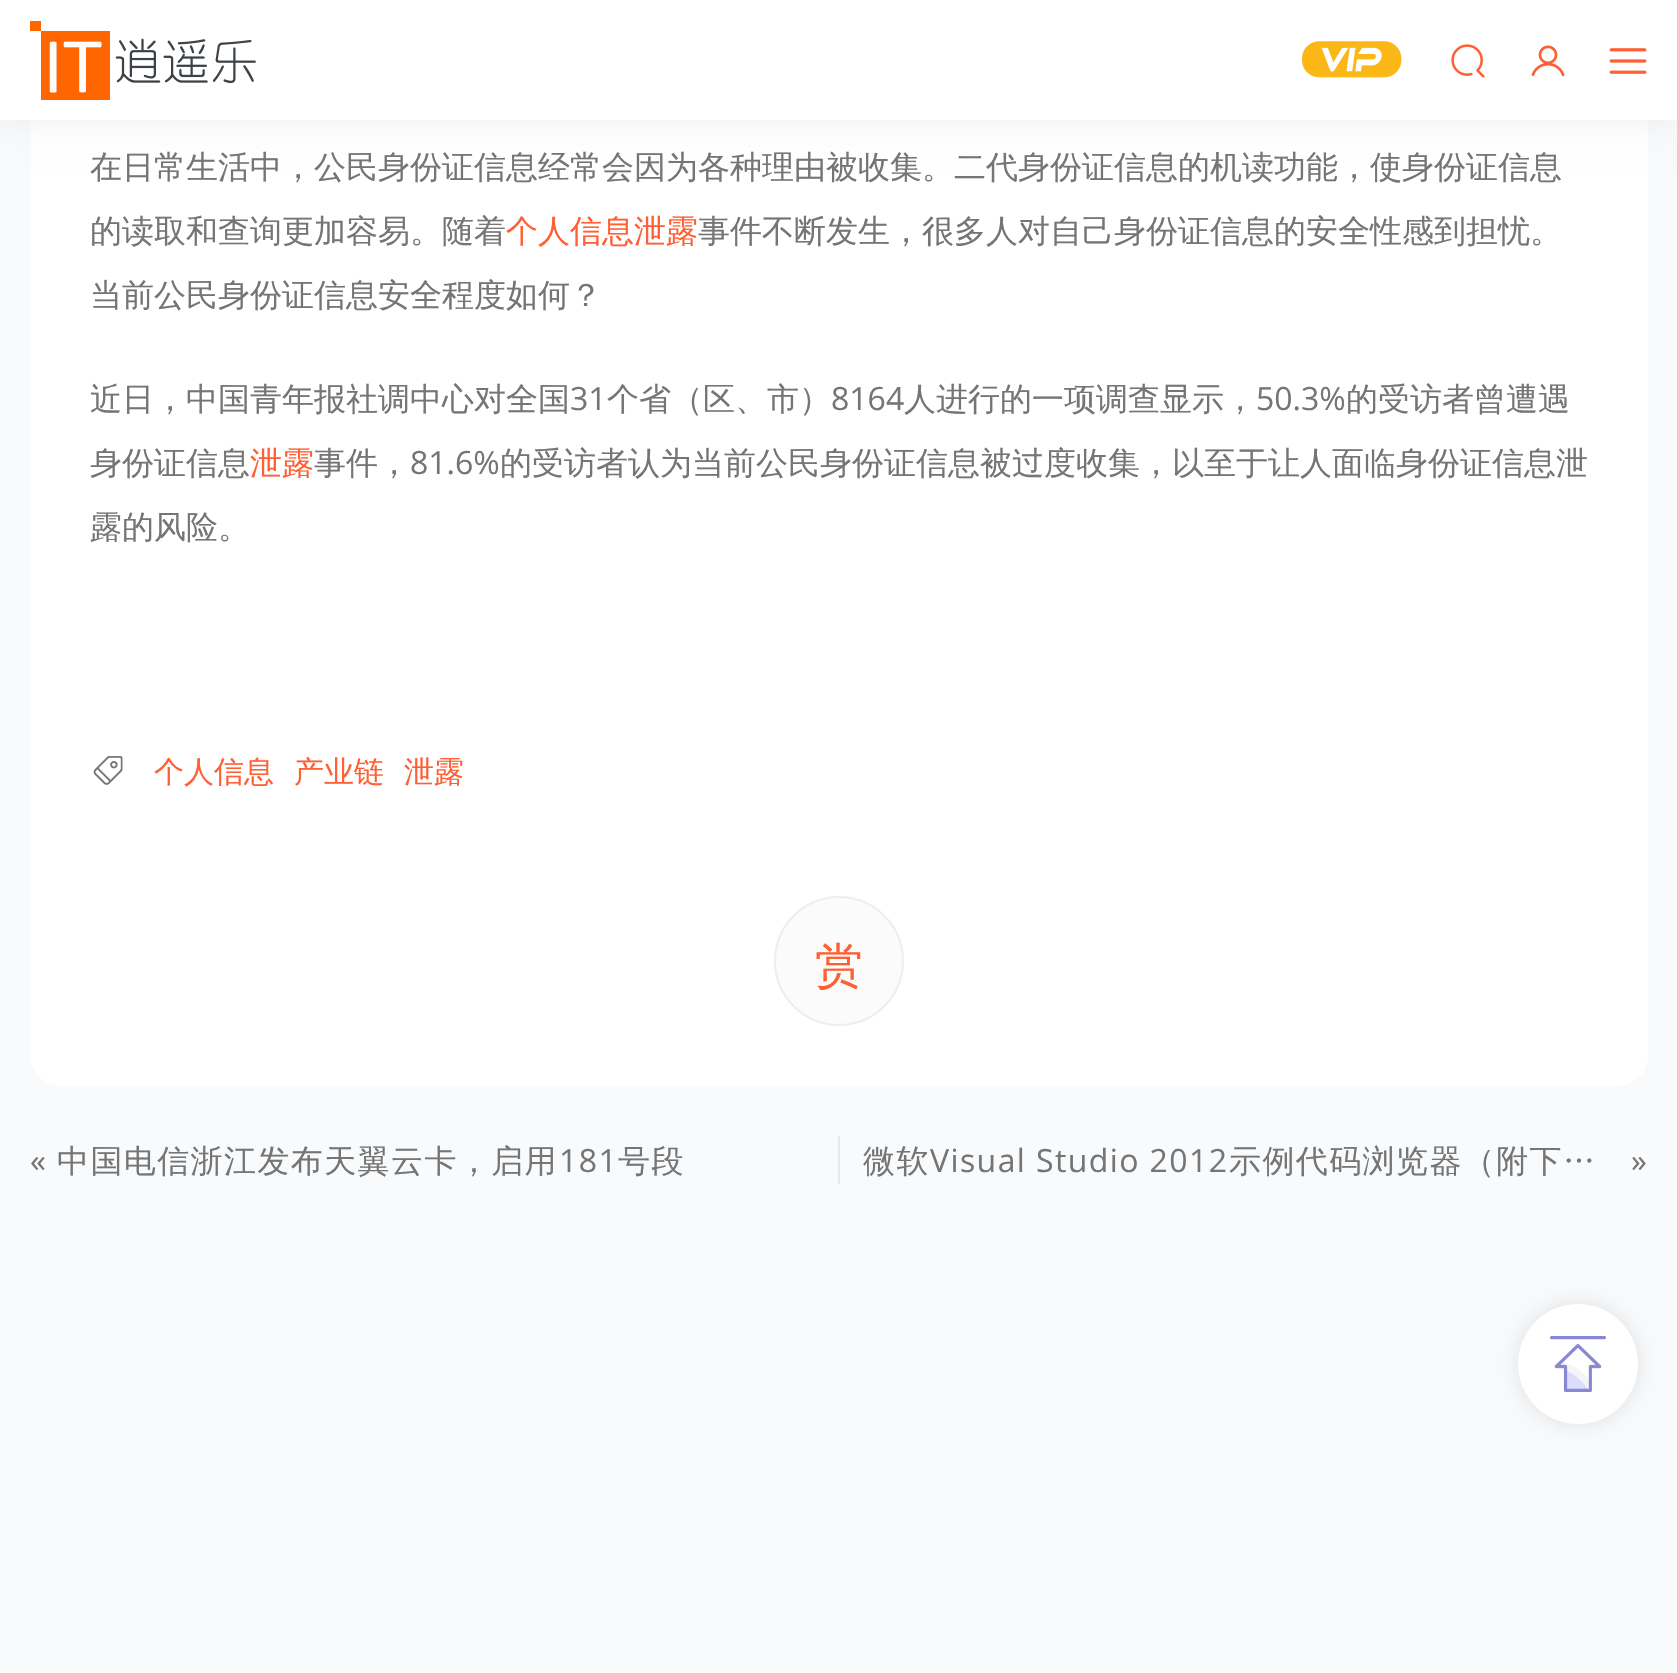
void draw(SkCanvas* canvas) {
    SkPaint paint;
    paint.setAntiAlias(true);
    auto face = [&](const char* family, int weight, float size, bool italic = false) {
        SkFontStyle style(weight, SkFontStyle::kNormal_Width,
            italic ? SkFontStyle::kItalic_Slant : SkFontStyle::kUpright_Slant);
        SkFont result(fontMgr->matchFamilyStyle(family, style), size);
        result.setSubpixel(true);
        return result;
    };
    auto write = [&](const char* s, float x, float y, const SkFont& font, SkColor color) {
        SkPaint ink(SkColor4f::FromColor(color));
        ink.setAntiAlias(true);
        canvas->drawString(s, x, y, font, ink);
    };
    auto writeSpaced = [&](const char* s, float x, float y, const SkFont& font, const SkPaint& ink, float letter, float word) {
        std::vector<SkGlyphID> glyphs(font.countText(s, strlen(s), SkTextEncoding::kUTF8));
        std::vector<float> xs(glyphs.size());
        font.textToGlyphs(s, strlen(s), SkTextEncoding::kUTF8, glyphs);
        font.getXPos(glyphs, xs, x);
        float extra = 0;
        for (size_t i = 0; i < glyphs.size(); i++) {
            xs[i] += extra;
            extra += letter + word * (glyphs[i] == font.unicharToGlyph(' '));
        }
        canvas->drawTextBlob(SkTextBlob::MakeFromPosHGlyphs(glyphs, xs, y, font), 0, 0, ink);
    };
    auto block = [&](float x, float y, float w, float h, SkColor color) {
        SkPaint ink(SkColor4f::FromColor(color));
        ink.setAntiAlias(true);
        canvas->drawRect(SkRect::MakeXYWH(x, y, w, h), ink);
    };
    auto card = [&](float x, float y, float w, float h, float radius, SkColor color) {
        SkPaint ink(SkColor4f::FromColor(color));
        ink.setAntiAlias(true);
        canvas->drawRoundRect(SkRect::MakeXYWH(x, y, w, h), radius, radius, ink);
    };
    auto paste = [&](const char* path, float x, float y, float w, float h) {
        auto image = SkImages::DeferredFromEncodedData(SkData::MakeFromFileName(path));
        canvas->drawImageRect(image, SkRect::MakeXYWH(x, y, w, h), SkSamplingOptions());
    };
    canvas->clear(SkColorSetRGB(248, 250, 252));
    card(30, -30, 1618, 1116, 30, SK_ColorWHITE);
    paint.setColor(SkColorSetARGB(15, 0, 0, 0));
    paint.setMaskFilter(SkMaskFilter::MakeBlur(kNormal_SkBlurStyle, 18));
    canvas->drawRect(SkRect::MakeXYWH(0, 0, 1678, 120), paint);
    paint.setMaskFilter(nullptr);
    block(0, 0, 1677, 120, SK_ColorWHITE);
    paste("pic1.png", 30, 21, 226, 79);
    paste("pic2.png", 1302, 41, 100, 37);
    paste("pic3.png", 1451, 44, 34, 34);
    paste("pic4.png", 1531, 45, 34, 32);
    paste("pic5.png", 1609, 48, 38, 26);
    auto kFont1 = face("WenQuanYi Zen Hei", 500, 32);
    write("在日常生活中，公民身份证信息经常会因为各种理由被收集。二代身份证信息的机读功能，使身份证信息", 90, 178, kFont1, SkColorSetRGB(117, 117, 117));
    write("的读取和查询更加容易。随着", 90, 242, kFont1, SkColorSetRGB(117, 117, 117));
    write("个人信息泄露", 506, 242, kFont1, SkColorSetRGB(255, 95, 51));
    write("事件不断发生，很多人对自己身份证信息的安全性感到担忧。", 698, 242, kFont1, SkColorSetRGB(117, 117, 117));
    write("当前公民身份证信息安全程度如何？", 90, 306, kFont1, SkColorSetRGB(117, 117, 117));
    write("近日，中国青年报社调中心对全国", 90, 410, kFont1, SkColorSetRGB(117, 117, 117));
    auto kFont2 = face("Open Sans", 400, 32);
    write("31", 570, 410, kFont2, SkColorSetRGB(117, 117, 117));
    write("个省（区、市）", 607, 410, kFont1, SkColorSetRGB(117, 117, 117));
    write("8164", 831, 410, kFont2, SkColorSetRGB(117, 117, 117));
    write("人进行的一项调查显示，", 904, 410, kFont1, SkColorSetRGB(117, 117, 117));
    write("50.3%", 1256, 410, kFont2, SkColorSetRGB(117, 117, 117));
    write("的受访者曾遭遇", 1346, 410, kFont1, SkColorSetRGB(117, 117, 117));
    write("身份证信息", 90, 474, kFont1, SkColorSetRGB(117, 117, 117));
    write("泄露", 250, 474, kFont1, SkColorSetRGB(255, 95, 51));
    write("事件，", 314, 474, kFont1, SkColorSetRGB(117, 117, 117));
    write("81.6%", 410, 474, kFont2, SkColorSetRGB(117, 117, 117));
    write("的受访者认为当前公民身份证信息被过度收集，以至于让人面临身份证信息泄", 500, 474, kFont1, SkColorSetRGB(117, 117, 117));
    write("露的风险。", 90, 538, kFont1, SkColorSetRGB(117, 117, 117));
    paste("pic6.png", 93, 756, 30, 29);
    auto kFont3 = face("WenQuanYi Zen Hei", 500, 30);
    write("个人信息", 154, 782, kFont3, SkColorSetRGB(255, 95, 51));
    write("产业链", 294, 782, kFont3, SkColorSetRGB(255, 95, 51));
    write("泄露", 404, 782, kFont3, SkColorSetRGB(255, 95, 51));
    paint.setColor(SkColorSetRGB(251, 251, 251));
    canvas->drawCircle(839, 961, 64, paint);
    paint.setStyle(SkPaint::kStroke_Style);
    paint.setStrokeWidth(2);
    paint.setColor(SkColorSetRGB(238, 238, 238));
    canvas->drawCircle(839, 961, 64, paint);
    auto kFont4 = face("WenQuanYi Zen Hei", 500, 48);
    write("赏", 815, 982, kFont4, SkColorSetRGB(255, 95, 51));
    paint.setStyle(SkPaint::kFill_Style);
    paint.setColor(SkColorSetRGB(117, 117, 117));
    writeSpaced("«", 30, 1172, kFont2, paint, 1.4f, 0);
    writeSpaced("中国电信浙江发布天翼云卡，启用", 57, 1172, kFont1, paint, 1.4f, 0);
    writeSpaced("181", 559, 1172, kFont2, paint, 1.4f, 0);
    writeSpaced("号段", 618, 1172, kFont1, paint, 1.4f, 0);
    block(838, 1136, 2, 48, SkColorSetRGB(230, 233, 237));
    writeSpaced("微软", 863, 1172, kFont1, paint, 1.4f, 0);
    writeSpaced("Visual Studio 2012", 930, 1172, kFont2, paint, 1.4f, 0);
    writeSpaced("示例代码浏览器（附下…", 1229, 1172, kFont1, paint, 1.4f, 0);
    writeSpaced("»", 1631, 1172, kFont2, paint, 1.4f, 0);
    paint.setColor(SkColorSetARGB(26, 0, 0, 0));
    paint.setMaskFilter(SkMaskFilter::MakeBlur(kNormal_SkBlurStyle, 10));
    canvas->drawRoundRect(SkRect::MakeXYWH(1518, 1304, 120, 120), 60, 60, paint);
    paint.setMaskFilter(nullptr);
    paint.setColor(SK_ColorWHITE);
    canvas->drawCircle(1578, 1364, 60, paint);
    paste("pic7.png", 1550, 1336, 56, 56);
}
